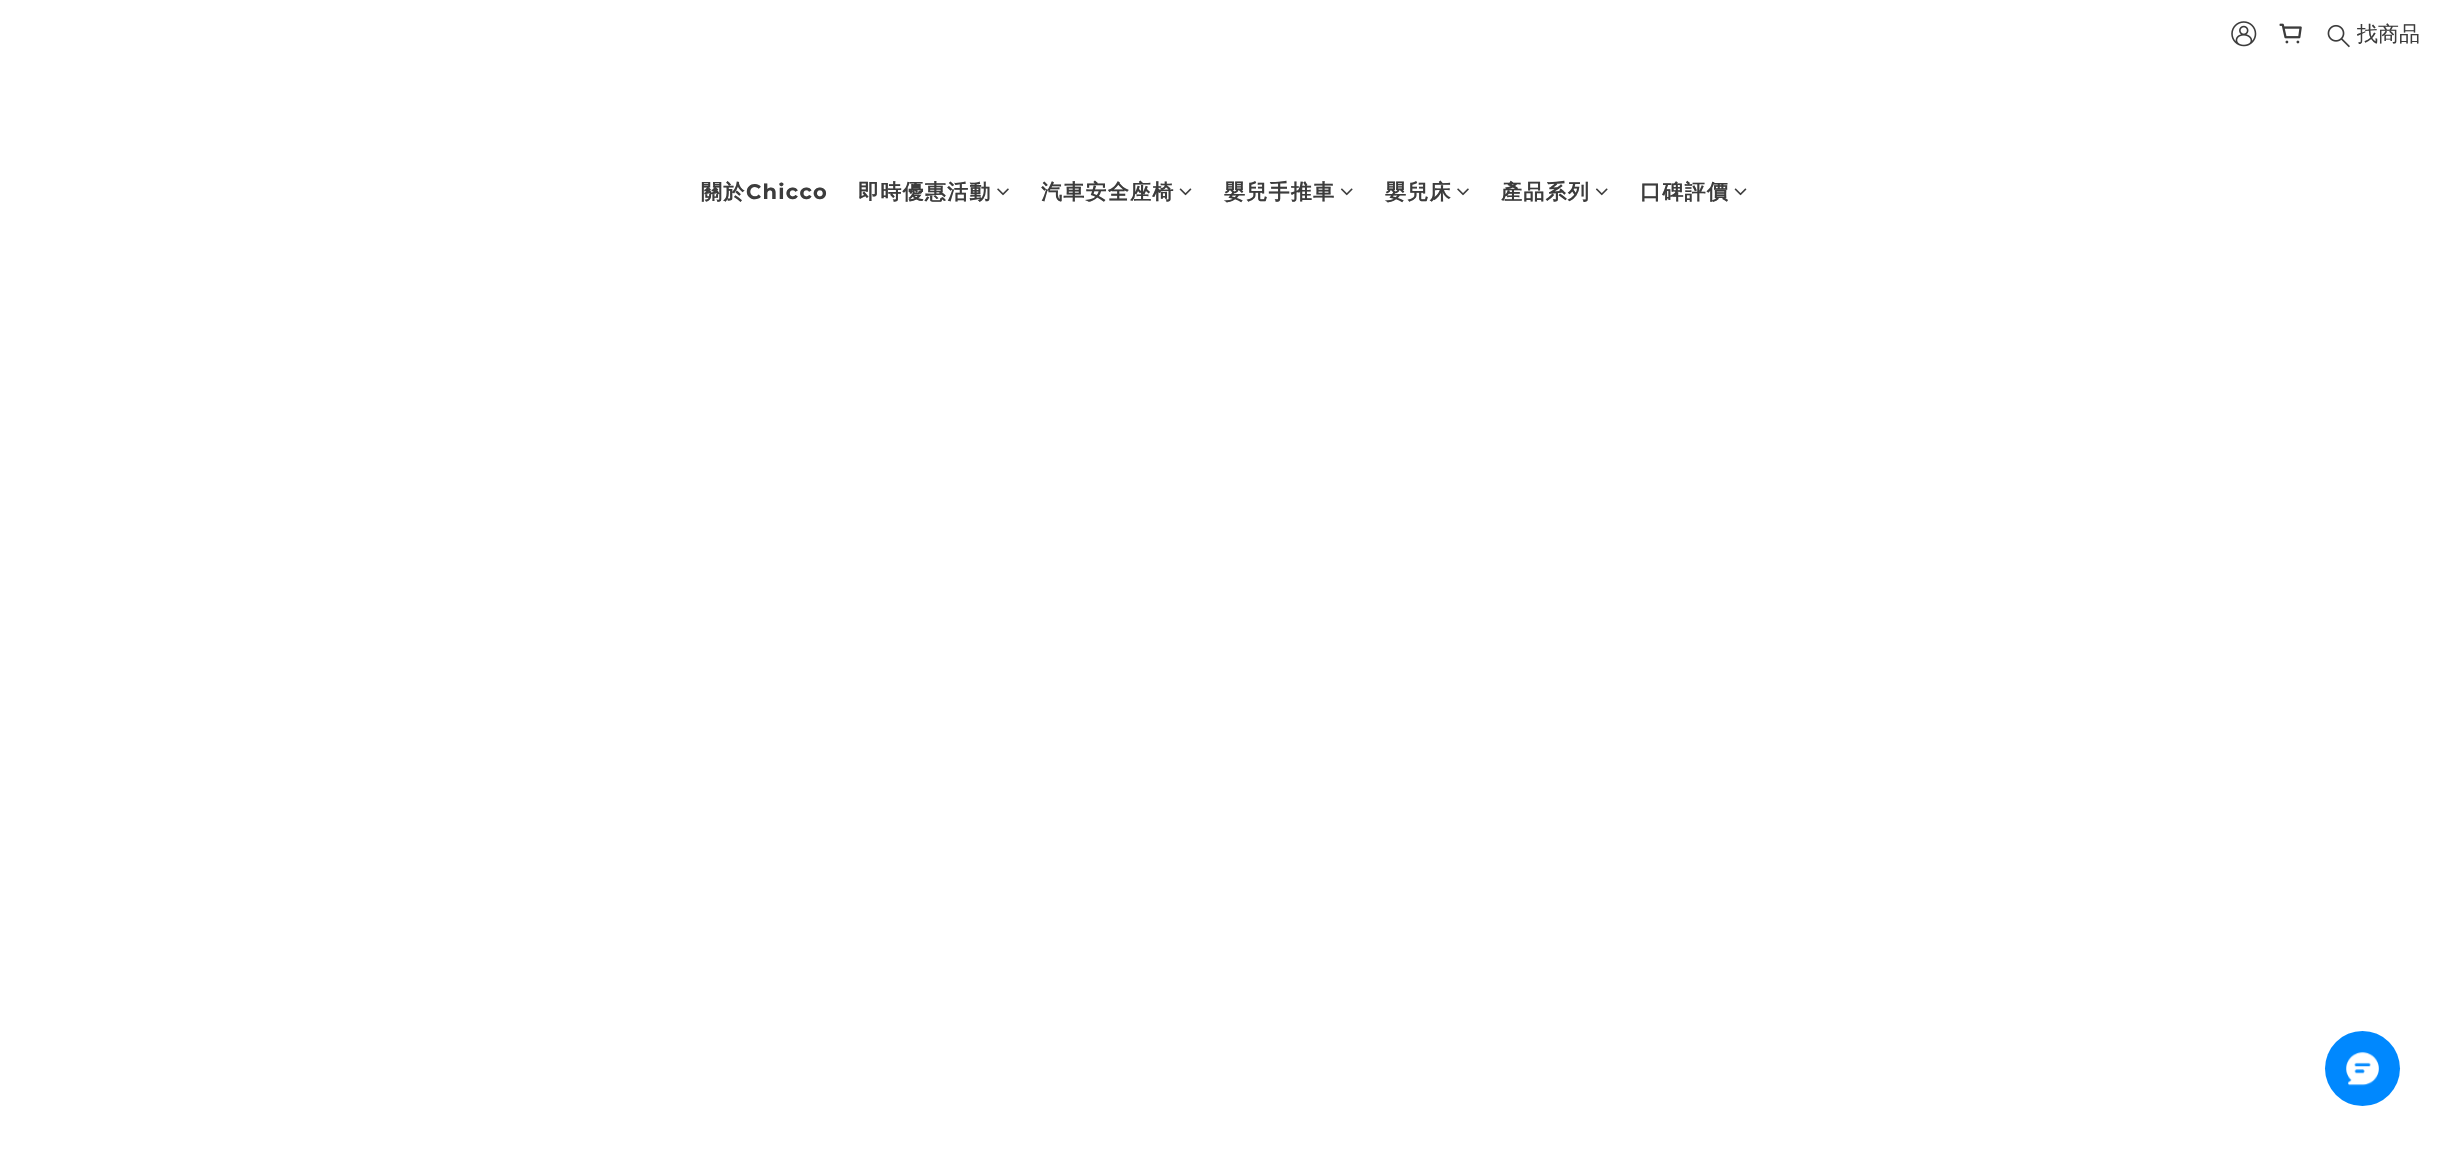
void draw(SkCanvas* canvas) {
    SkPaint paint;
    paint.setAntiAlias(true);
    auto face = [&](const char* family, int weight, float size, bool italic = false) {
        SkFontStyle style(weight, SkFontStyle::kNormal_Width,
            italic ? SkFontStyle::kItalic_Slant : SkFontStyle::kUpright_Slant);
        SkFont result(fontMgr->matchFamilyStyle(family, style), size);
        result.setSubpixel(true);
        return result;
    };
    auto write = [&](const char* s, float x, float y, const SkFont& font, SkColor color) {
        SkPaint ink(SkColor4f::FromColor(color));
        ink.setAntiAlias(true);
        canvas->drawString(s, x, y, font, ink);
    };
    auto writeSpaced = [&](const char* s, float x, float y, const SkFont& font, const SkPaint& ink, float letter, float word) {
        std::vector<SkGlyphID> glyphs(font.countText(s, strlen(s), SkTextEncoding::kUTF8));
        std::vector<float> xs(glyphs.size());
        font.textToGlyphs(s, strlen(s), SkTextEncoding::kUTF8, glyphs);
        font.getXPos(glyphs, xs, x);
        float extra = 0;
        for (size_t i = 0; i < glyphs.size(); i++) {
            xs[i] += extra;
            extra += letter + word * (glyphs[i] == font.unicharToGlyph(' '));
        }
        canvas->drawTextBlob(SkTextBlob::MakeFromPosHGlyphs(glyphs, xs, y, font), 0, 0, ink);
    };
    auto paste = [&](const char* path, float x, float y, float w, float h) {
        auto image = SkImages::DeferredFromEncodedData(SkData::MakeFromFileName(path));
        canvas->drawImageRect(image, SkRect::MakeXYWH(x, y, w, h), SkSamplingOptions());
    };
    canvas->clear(SK_ColorWHITE);
    paste("pic1.png", 2231, 21, 26, 26);
    paste("pic2.png", 2279, 23, 23, 21);
    paste("pic3.png", 2327, 24, 23, 24);
    auto kFont1 = face("WenQuanYi Zen Hei", 500, 21);
    write("找商品", 2357, 41, kFont1, SkColorSetRGB(60, 60, 60));
    auto kFont2 = face("WenQuanYi Zen Hei", 700, 21);
    paint.setColor(SkColorSetRGB(60, 60, 60));
    writeSpaced("關於", 701, 199, kFont2, paint, 1.25f, 0);
    auto kFont3 = face("Montserrat", 700, 21);
    writeSpaced("Chicco", 746, 199, kFont3, paint, 1.25f, 0);
    writeSpaced("即時優惠活動", 858, 199, kFont2, paint, 1.25f, 0);
    paste("pic4.png", 997, 188, 12, 8);
    writeSpaced("汽車安全座椅", 1041, 199, kFont2, paint, 1.25f, 0);
    paste("pic5.png", 1179, 188, 13, 8);
    writeSpaced("嬰兒手推車", 1224, 199, kFont2, paint, 1.25f, 0);
    paste("pic6.png", 1340, 188, 13, 8);
    writeSpaced("嬰兒床", 1385, 199, kFont2, paint, 1.25f, 0);
    paste("pic4.png", 1457, 188, 12, 8);
    writeSpaced("產品系列", 1501, 199, kFont2, paint, 1.25f, 0);
    paste("pic6.png", 1595, 188, 13, 8);
    writeSpaced("口碑評價", 1640, 199, kFont2, paint, 1.25f, 0);
    paste("pic5.png", 1734, 188, 13, 8);
    paint.setColor(SkColorSetRGB(0, 136, 254));
    canvas->drawCircle(2362.5f, 1068.5f, 37.5f, paint);
    paste("pic7.png", 2346, 1052, 33, 34);
}
